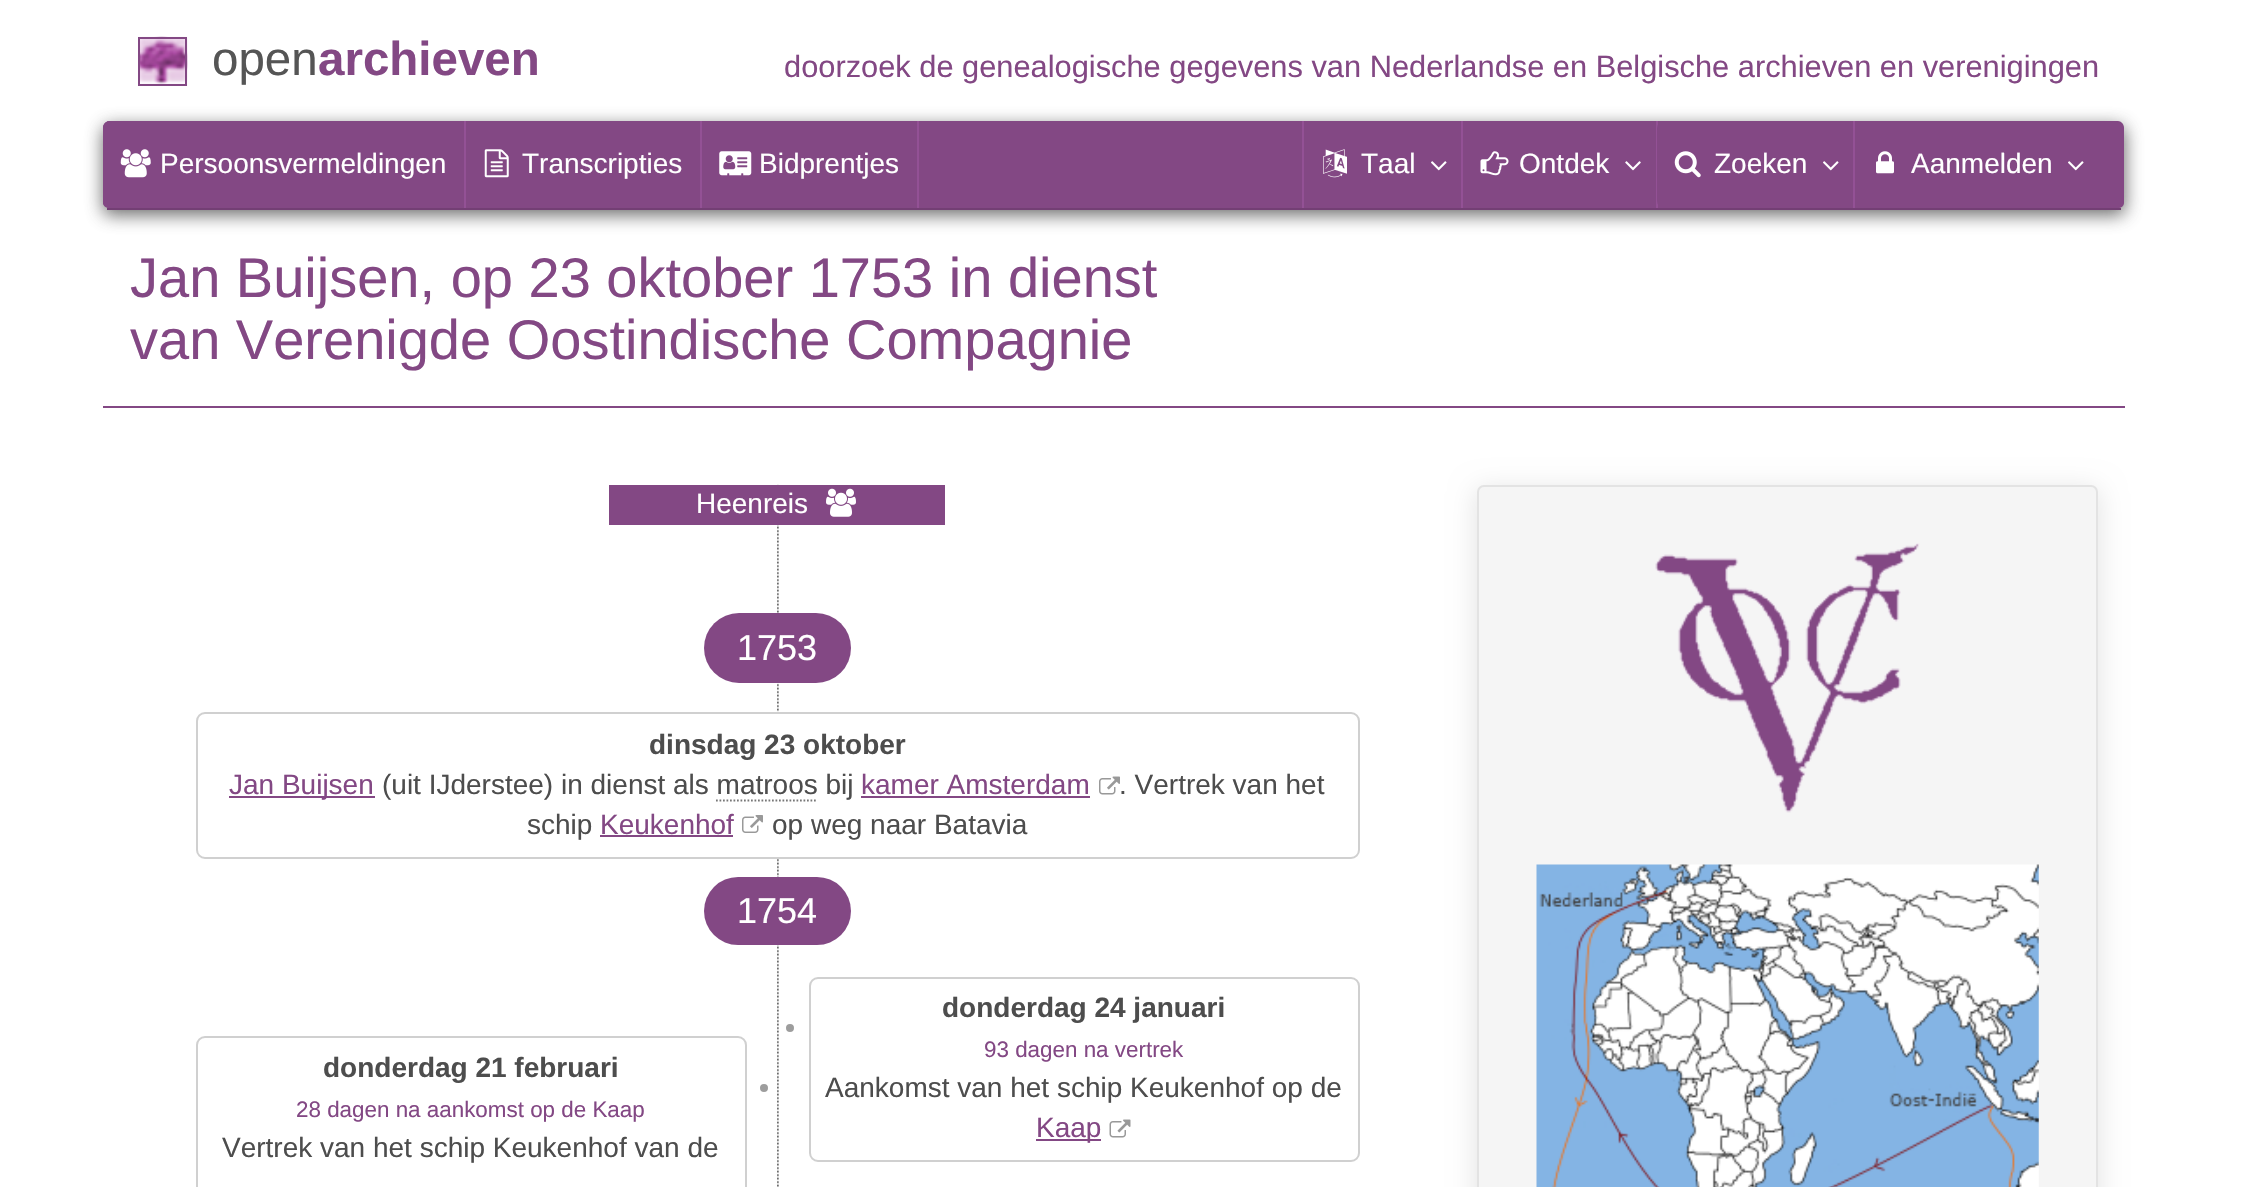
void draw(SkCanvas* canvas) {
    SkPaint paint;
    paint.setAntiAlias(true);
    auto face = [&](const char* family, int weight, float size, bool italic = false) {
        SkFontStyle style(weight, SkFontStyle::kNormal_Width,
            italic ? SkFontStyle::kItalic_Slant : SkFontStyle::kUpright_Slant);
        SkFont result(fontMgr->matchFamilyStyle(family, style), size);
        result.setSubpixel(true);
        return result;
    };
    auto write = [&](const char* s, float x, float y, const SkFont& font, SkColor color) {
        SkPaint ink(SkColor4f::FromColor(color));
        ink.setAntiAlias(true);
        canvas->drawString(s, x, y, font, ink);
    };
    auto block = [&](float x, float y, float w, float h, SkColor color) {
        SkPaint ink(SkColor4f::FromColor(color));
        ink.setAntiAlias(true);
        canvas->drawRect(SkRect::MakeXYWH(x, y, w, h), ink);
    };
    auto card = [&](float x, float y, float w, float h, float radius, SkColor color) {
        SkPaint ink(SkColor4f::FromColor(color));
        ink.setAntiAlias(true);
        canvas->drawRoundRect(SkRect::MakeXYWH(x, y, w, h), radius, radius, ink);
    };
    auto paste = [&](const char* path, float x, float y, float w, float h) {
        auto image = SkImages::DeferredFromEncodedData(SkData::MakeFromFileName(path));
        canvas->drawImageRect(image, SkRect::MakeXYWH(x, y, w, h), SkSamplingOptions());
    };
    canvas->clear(SK_ColorWHITE);
    paste("pic1.png", 138, 36, 50, 50);
    paint.setStyle(SkPaint::kStroke_Style);
    paint.setStrokeWidth(2);
    paint.setColor(SkColorSetRGB(131, 72, 132));
    canvas->drawRect(SkRect::MakeXYWH(139, 38, 47, 47), paint);
    auto kFont1 = face("Liberation Sans", 400, 47.5f);
    write("open", 212, 75, kFont1, SkColorSetRGB(85, 85, 85));
    auto kFont2 = face("Liberation Sans", 700, 47.5f);
    write("archieven", 318, 75, kFont2, SkColorSetRGB(131, 72, 132));
    auto kFont3 = face("Liberation Sans", 400, 30.8f);
    write("doorzoek de genealogische gegevens van Nederlandse en Belgische archieven en verenigingen", 784, 77, kFont3, SkColorSetRGB(131, 72, 132));
    paint.setStyle(SkPaint::kFill_Style);
    paint.setColor(SkColorSetARGB(186, 50, 50, 50));
    paint.setMaskFilter(SkMaskFilter::MakeBlur(kNormal_SkBlurStyle, 9));
    canvas->drawRoundRect(SkRect::MakeXYWH(103, 126, 2022, 89), 7, 7, paint);
    paint.setMaskFilter(nullptr);
    paint.setColor(SkColorSetRGB(131, 72, 132));
    canvas->drawPath(SkPathBuilder().moveTo(110, 121).lineTo(2118, 121).cubicTo(2121, 121, 2124, 124, 2124, 128).lineTo(2124, 203).cubicTo(2124, 206, 2121, 208, 2118, 208).lineTo(110, 208).cubicTo(106, 208, 103, 206, 103, 203).lineTo(103, 128).cubicTo(103, 124, 106, 121, 110, 121).close().detach(), paint);
    block(107, 208, 2014, 2, SkColorSetRGB(115, 63, 116));
    card(103, 121, 1995, 87, 7, SkColorSetRGB(131, 72, 132));
    card(103, 121, 361, 87, 7, SkColorSetRGB(131, 72, 132));
    paste("pic2.png", 120, 149, 31, 29);
    auto kFont4 = face("Liberation Sans", 400, 28);
    write("Persoonsvermeldingen", 160, 173, kFont4, SK_ColorWHITE);
    block(464, 121, 2, 87, SkColorSetRGB(147, 81, 149));
    paste("pic3.png", 484, 149, 25, 29);
    write("Transcripties", 522, 173, kFont4, SK_ColorWHITE);
    block(700, 121, 2, 87, SkColorSetRGB(147, 81, 149));
    paste("pic4.png", 719, 151, 33, 25);
    write("Bidprentjes", 759, 173, kFont4, SK_ColorWHITE);
    block(917, 121, 2, 87, SkColorSetRGB(147, 81, 149));
    block(1302, 121, 2, 87, SkColorSetRGB(147, 81, 149));
    paste("pic5.png", 1323, 149, 24, 29);
    write("Taal", 1361, 173, kFont4, SK_ColorWHITE);
    paste("pic6.png", 1431, 161, 16, 10);
    block(1461, 121, 2, 87, SkColorSetRGB(147, 81, 149));
    paste("pic7.png", 1480, 151, 29, 25);
    write("Ontdek", 1519, 173, kFont4, SK_ColorWHITE);
    paste("pic8.png", 1625, 161, 16, 10);
    block(1656, 121, 2, 87, SkColorSetRGB(147, 81, 149));
    card(1657, 121, 196, 87, 7, SkColorSetRGB(131, 72, 132));
    paste("pic9.png", 1674, 151, 27, 27);
    write("Zoeken", 1714, 173, kFont4, SK_ColorWHITE);
    paste("pic6.png", 1823, 161, 16, 10);
    block(1853, 121, 2, 87, SkColorSetRGB(147, 81, 149));
    paste("pic10.png", 1876, 151, 18, 23);
    write("Aanmelden", 1911, 173, kFont4, SK_ColorWHITE);
    paste("pic6.png", 2068, 161, 16, 10);
    block(103, 406, 2022, 2, SkColorSetRGB(131, 72, 132));
    auto kFont5 = face("Liberation Sans", 400, 56);
    write("Jan Buijsen, op 23 oktober 1753 in dienst", 130, 297, kFont5, SkColorSetRGB(131, 72, 132));
    write("van Verenigde Oostindische Compagnie", 130, 359, kFont5, SkColorSetRGB(131, 72, 132));
    paste("pic11.png", 777, 484, 2, 703);
    block(609, 485, 336, 40, SkColorSetRGB(131, 72, 132));
    write("Heenreis", 696, 513, kFont4, SK_ColorWHITE);
    paste("pic12.png", 826, 488, 30, 29);
    card(704, 613, 147, 70, 35, SkColorSetRGB(131, 72, 132));
    auto kFont6 = face("Liberation Sans", 400, 36);
    write("1753", 737, 660, kFont6, SK_ColorWHITE);
    paint.setColor(SK_ColorWHITE);
    canvas->drawRoundRect(SkRect::MakeXYWH(197, 713, 1162, 145), 8, 8, paint);
    paint.setStyle(SkPaint::kStroke_Style);
    paint.setColor(SkColorSetRGB(208, 208, 208));
    canvas->drawRoundRect(SkRect::MakeXYWH(197, 713, 1162, 145), 8, 8, paint);
    auto kFont7 = face("Liberation Sans", 700, 28);
    write("dinsdag 23 oktober", 649, 754, kFont7, SkColorSetRGB(77, 77, 77));
    block(229, 796, 146, 2, SkColorSetRGB(131, 72, 132));
    write("Jan Buijsen", 229, 794, kFont4, SkColorSetRGB(131, 72, 132));
    write("(uit IJderstee) in dienst als matroos bij", 382, 794, kFont4, SkColorSetRGB(77, 77, 77));
    write("kamer Amsterdam", 861, 794, kFont4, SkColorSetRGB(131, 72, 132));
    block(861, 796, 229, 2, SkColorSetRGB(131, 72, 132));
    paste("pic13.png", 1099, 776, 21, 19);
    write(". Vertrek van het", 1119, 794, kFont4, SkColorSetRGB(77, 77, 77));
    paint.setStrokeWidth(1.8f);
    paint.setColor(SkColorSetRGB(119, 119, 119));
    paint.setPathEffect(SkDashPathEffect::Make({{1.75f, 1.75f}}, 0));
    canvas->drawPath(SkPathBuilder().moveTo(716, 800.5f).lineTo(817, 800.5f).detach(), paint);
    paint.setPathEffect(nullptr);
    write("schip", 527, 834, kFont4, SkColorSetRGB(77, 77, 77));
    write("Keukenhof", 600, 834, kFont4, SkColorSetRGB(131, 72, 132));
    block(600, 835, 133, 2, SkColorSetRGB(131, 72, 132));
    paste("pic14.png", 742, 815, 21, 18);
    write("op weg naar Batavia", 772, 834, kFont4, SkColorSetRGB(77, 77, 77));
    card(704, 877, 147, 68, 34, SkColorSetRGB(131, 72, 132));
    write("1754", 737, 923, kFont6, SK_ColorWHITE);
    paint.setStrokeWidth(2);
    paint.setColor(SkColorSetRGB(208, 208, 208));
    canvas->drawRoundRect(SkRect::MakeXYWH(197, 1037, 549, 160), 8, 8, paint);
    write("donderdag 21 februari", 323, 1077, kFont7, SkColorSetRGB(77, 77, 77));
    paint.setStyle(SkPaint::kFill_Style);
    paint.setColor(SkColorSetRGB(157, 157, 157));
    canvas->drawCircle(764, 1088, 6, paint);
    paint.setStyle(SkPaint::kStroke_Style);
    paint.setStrokeWidth(4);
    paint.setColor(SK_ColorWHITE);
    canvas->drawCircle(764, 1088, 6, paint);
    auto kFont8 = face("Liberation Sans", 400, 22.4f);
    write("28 dagen na aankomst op de Kaap", 296, 1117, kFont8, SkColorSetRGB(131, 72, 132));
    write("Vertrek van het schip Keukenhof van de", 222, 1157, kFont4, SkColorSetRGB(77, 77, 77));
    paint.setStrokeWidth(2);
    paint.setColor(SkColorSetRGB(208, 208, 208));
    canvas->drawRoundRect(SkRect::MakeXYWH(810, 978, 549, 183), 8, 8, paint);
    write("donderdag 24 januari", 942, 1017, kFont7, SkColorSetRGB(77, 77, 77));
    paint.setStyle(SkPaint::kFill_Style);
    paint.setColor(SkColorSetRGB(157, 157, 157));
    canvas->drawCircle(790, 1028, 6, paint);
    paint.setStyle(SkPaint::kStroke_Style);
    paint.setStrokeWidth(4);
    paint.setColor(SK_ColorWHITE);
    canvas->drawCircle(790, 1028, 6, paint);
    write("93 dagen na vertrek", 984, 1057, kFont8, SkColorSetRGB(131, 72, 132));
    write("Aankomst van het schip Keukenhof op de", 825, 1097, kFont4, SkColorSetRGB(77, 77, 77));
    block(1036, 1139, 65, 2, SkColorSetRGB(131, 72, 132));
    write("Kaap", 1036, 1137, kFont4, SkColorSetRGB(131, 72, 132));
    paste("pic15.png", 1109, 1119, 22, 19);
    paint.setStyle(SkPaint::kFill_Style);
    paint.setColor(SkColorSetARGB(26, 0, 0, 0));
    paint.setMaskFilter(SkMaskFilter::MakeBlur(kNormal_SkBlurStyle, 13));
    canvas->drawRoundRect(SkRect::MakeXYWH(1475, 488, 625, 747), 9, 9, paint);
    paint.setMaskFilter(nullptr);
    paint.setColor(SkColorSetRGB(245, 245, 245));
    canvas->drawRoundRect(SkRect::MakeXYWH(1478, 486, 619, 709), 6, 6, paint);
    paint.setStyle(SkPaint::kStroke_Style);
    paint.setStrokeWidth(2);
    paint.setColor(SkColorSetRGB(227, 227, 227));
    canvas->drawRoundRect(SkRect::MakeXYWH(1478, 486, 619, 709), 6, 6, paint);
    paste("pic16.png", 1655, 543, 265, 270);
    paste("pic17.png", 1536, 864, 503, 323);
}
